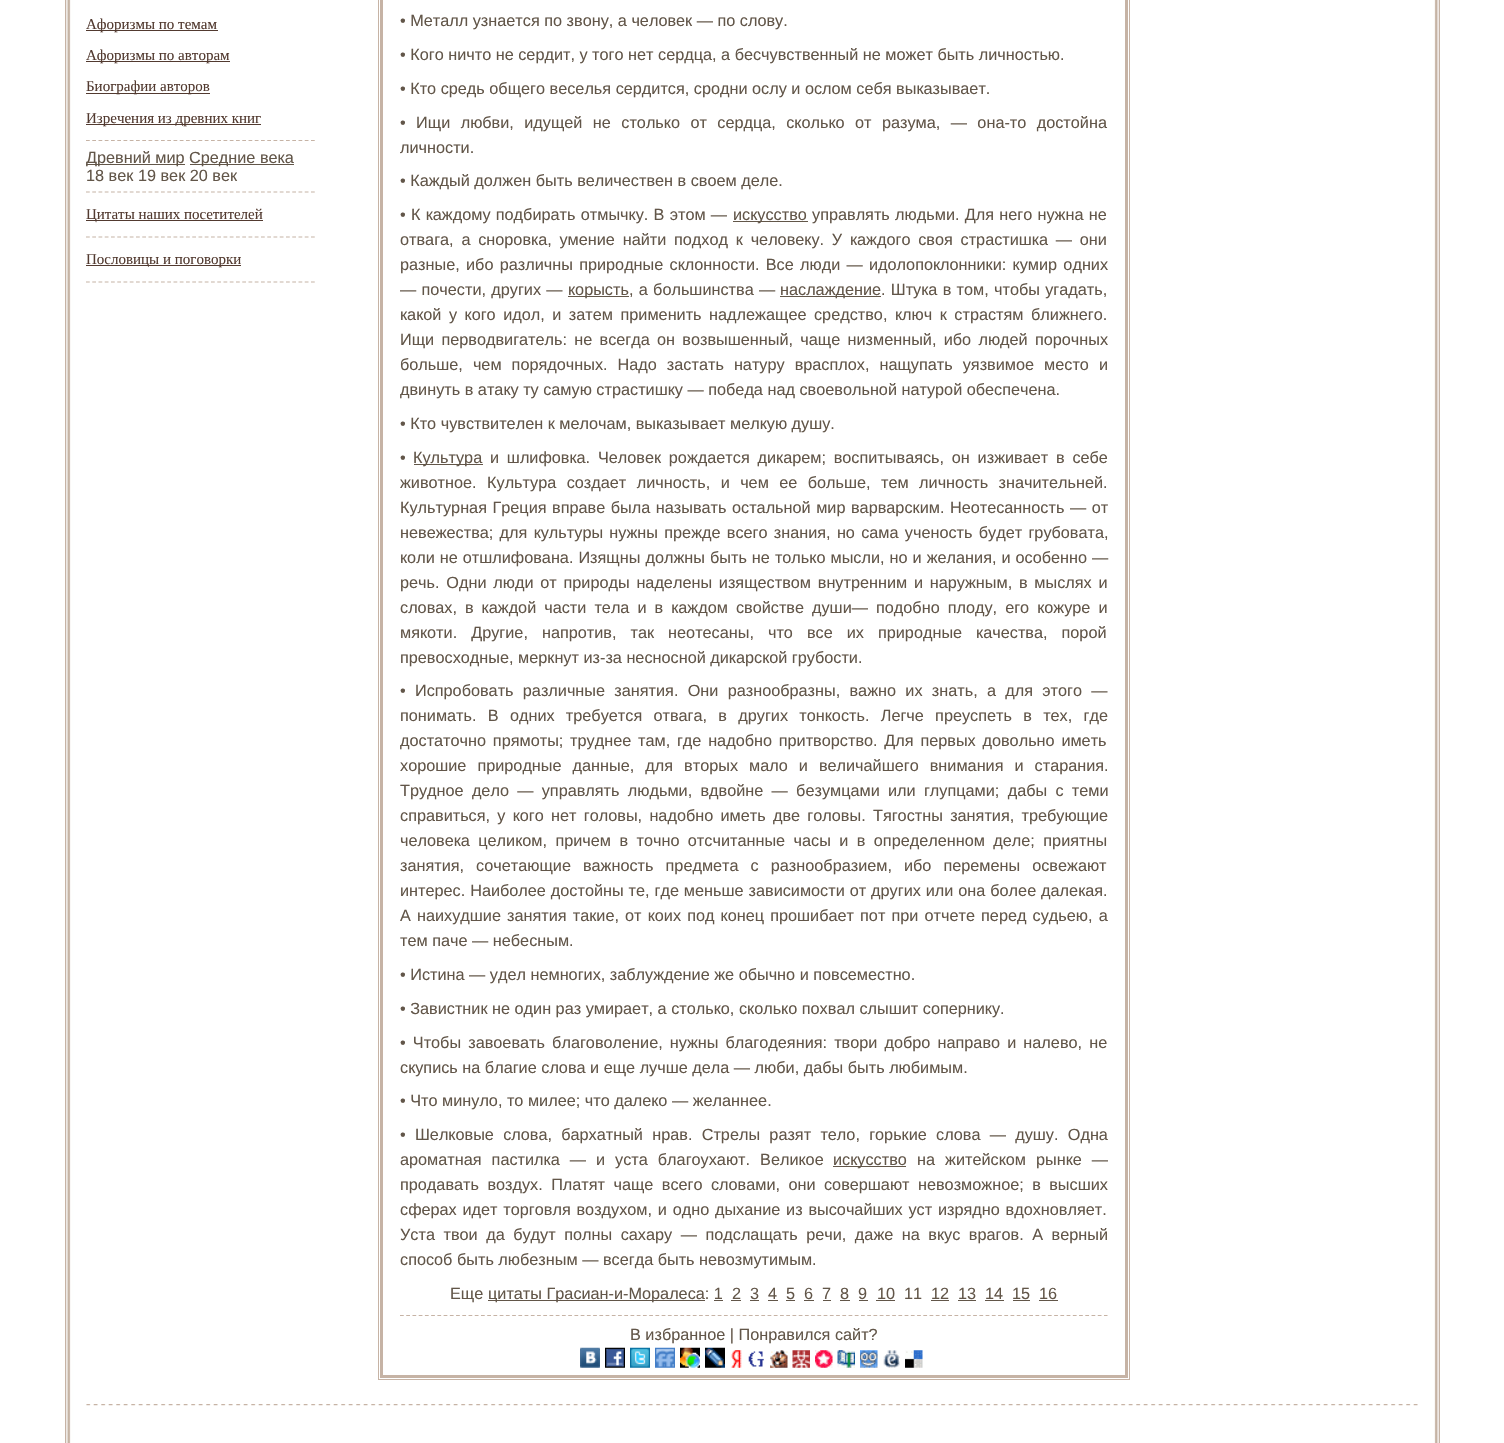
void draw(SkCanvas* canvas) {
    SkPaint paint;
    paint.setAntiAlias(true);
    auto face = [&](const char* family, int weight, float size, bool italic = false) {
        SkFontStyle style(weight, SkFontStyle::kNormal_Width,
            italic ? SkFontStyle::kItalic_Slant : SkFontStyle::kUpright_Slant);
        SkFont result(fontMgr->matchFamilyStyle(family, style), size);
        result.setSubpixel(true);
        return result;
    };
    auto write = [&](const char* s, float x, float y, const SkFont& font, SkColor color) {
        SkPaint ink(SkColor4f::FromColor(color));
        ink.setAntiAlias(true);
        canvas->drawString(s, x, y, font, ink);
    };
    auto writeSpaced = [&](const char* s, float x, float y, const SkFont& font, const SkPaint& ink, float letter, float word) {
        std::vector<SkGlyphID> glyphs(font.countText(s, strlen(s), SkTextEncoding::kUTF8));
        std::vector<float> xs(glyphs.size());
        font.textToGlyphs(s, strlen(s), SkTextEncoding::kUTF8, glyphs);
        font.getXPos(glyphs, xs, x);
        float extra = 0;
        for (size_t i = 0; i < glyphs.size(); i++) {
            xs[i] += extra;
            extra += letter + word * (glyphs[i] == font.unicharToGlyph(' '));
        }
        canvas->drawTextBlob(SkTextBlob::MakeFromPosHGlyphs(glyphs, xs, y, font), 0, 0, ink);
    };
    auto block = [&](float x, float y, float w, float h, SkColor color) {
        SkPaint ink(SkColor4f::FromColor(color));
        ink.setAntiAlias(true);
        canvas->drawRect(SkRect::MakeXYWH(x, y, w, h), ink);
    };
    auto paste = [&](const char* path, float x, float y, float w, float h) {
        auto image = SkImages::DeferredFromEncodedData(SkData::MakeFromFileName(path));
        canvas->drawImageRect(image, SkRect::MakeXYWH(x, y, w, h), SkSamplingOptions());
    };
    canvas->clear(SK_ColorWHITE);
    paste("pic1.png", 65, 0, 1375, 1443);
    block(86, 30, 132, 1, SkColorSetRGB(82, 58, 48));
    auto kFont1 = face("Liberation Serif", 400, 15);
    write("Афоризмы по темам", 86, 29, kFont1, SkColorSetRGB(82, 58, 48));
    block(86, 61, 144, 1, SkColorSetRGB(82, 58, 48));
    write("Афоризмы по авторам", 86, 60, kFont1, SkColorSetRGB(82, 58, 48));
    block(86, 93, 124, 1, SkColorSetRGB(82, 58, 48));
    write("Биографии авторов", 86, 91, kFont1, SkColorSetRGB(82, 58, 48));
    block(86, 124, 175, 1, SkColorSetRGB(82, 58, 48));
    write("Изречения из древних книг", 86, 123, kFont1, SkColorSetRGB(82, 58, 48));
    paint.setStyle(SkPaint::kStroke_Style);
    paint.setStrokeWidth(1.2f);
    paint.setColor(SkColorSetRGB(198, 179, 165));
    paint.setPathEffect(SkDashPathEffect::Make({{3.75f, 2.5f}}, 0));
    canvas->drawPath(SkPathBuilder().moveTo(86, 140.5f).lineTo(315, 140.5f).detach(), paint);
    paint.setPathEffect(nullptr);
    block(86, 164, 99, 1, SkColorSetRGB(98, 86, 73));
    auto kFont2 = face("Liberation Sans", 400, 16.25f);
    write("Древний мир", 86, 163, kFont2, SkColorSetRGB(98, 86, 73));
    block(190, 164, 104, 1, SkColorSetRGB(98, 86, 73));
    write("Средние века", 189, 163, kFont2, SkColorSetRGB(98, 86, 73));
    write("18 век 19 век 20 век", 86, 181, kFont2, SkColorSetRGB(98, 86, 73));
    paint.setPathEffect(SkDashPathEffect::Make({{3.75f, 2.5f}}, 0));
    canvas->drawPath(SkPathBuilder().moveTo(86, 192).lineTo(315, 192).detach(), paint);
    paint.setPathEffect(nullptr);
    block(86, 220, 177, 1, SkColorSetRGB(82, 58, 48));
    write("Цитаты наших посетителей", 86, 219, kFont1, SkColorSetRGB(82, 58, 48));
    paint.setPathEffect(SkDashPathEffect::Make({{3.75f, 2.5f}}, 0));
    canvas->drawPath(SkPathBuilder().moveTo(86, 237).lineTo(315, 237).detach(), paint);
    paint.setPathEffect(nullptr);
    block(86, 265, 155, 1, SkColorSetRGB(82, 58, 48));
    write("Пословицы и поговорки", 86, 264, kFont1, SkColorSetRGB(82, 58, 48));
    paint.setPathEffect(SkDashPathEffect::Make({{3.75f, 2.5f}}, 0));
    canvas->drawPath(SkPathBuilder().moveTo(86, 282).lineTo(315, 282).detach(), paint);
    paint.setPathEffect(nullptr);
    paint.setStrokeWidth(1);
    canvas->drawRect(SkRect::MakeXYWH(378.5f, -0.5f, 751, 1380), paint);
    paint.setStrokeWidth(3);
    canvas->drawRect(SkRect::MakeXYWH(381.5f, -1.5f, 745, 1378), paint);
    write("• Металл узнается по звону, а человек — по слову.", 400, 26, kFont2, SkColorSetRGB(98, 86, 73));
    write("• Кого ничто не сердит, у того нет сердца, а бесчувственный не может быть личностью.", 400, 60, kFont2, SkColorSetRGB(98, 86, 73));
    write("• Кто средь общего веселья сердится, сродни ослу и ослом себя выказывает.", 400, 94, kFont2, SkColorSetRGB(98, 86, 73));
    paint.setStyle(SkPaint::kFill_Style);
    paint.setColor(SkColorSetRGB(98, 86, 73));
    writeSpaced("• Ищи любви, идущей не столько от сердца, сколько от разума, — она-то достойна", 400, 128, kFont2, paint, 0, 5.9f);
    write("личности.", 400, 153, kFont2, SkColorSetRGB(98, 86, 73));
    write("• Каждый должен быть величествен в своем деле.", 400, 186, kFont2, SkColorSetRGB(98, 86, 73));
    writeSpaced("• К каждому подбирать отмычку. В этом —", 400, 220, kFont2, paint, 0, 0.75f);
    block(733, 221, 75, 1, SkColorSetRGB(98, 86, 73));
    write("искусство", 733, 220, kFont2, SkColorSetRGB(98, 86, 73));
    writeSpaced("управлять людьми. Для него нужна не", 812, 220, kFont2, paint, 0, 0.75f);
    writeSpaced("отвага, а сноровка, умение найти подход к человеку. У каждого своя страстишка — они", 400, 245, kFont2, paint, 0, 3.25f);
    writeSpaced("разные, ибо различны природные склонности. Все люди — идолопоклонники: кумир одних", 400, 270, kFont2, paint, 0, 1.75f);
    writeSpaced("— почести, других —", 400, 295, kFont2, paint, 0, 0.75f);
    block(568, 296, 61, 1, SkColorSetRGB(98, 86, 73));
    write("корысть", 568, 295, kFont2, SkColorSetRGB(98, 86, 73));
    writeSpaced(", а большинства —", 629, 295, kFont2, paint, 0, 0.75f);
    block(780, 296, 101, 1, SkColorSetRGB(98, 86, 73));
    write("наслаждение", 780, 295, kFont2, SkColorSetRGB(98, 86, 73));
    writeSpaced(". Штука в том, чтобы угадать,", 881, 295, kFont2, paint, 0, 0.75f);
    writeSpaced("какой у кого идол, и затем применить надлежащее средство, ключ к страстям ближнего.", 400, 320, kFont2, paint, 0, 3);
    writeSpaced("Ищи перводвигатель: не всегда он возвышенный, чаще низменный, ибо людей порочных", 400, 345, kFont2, paint, 0, 2.75f);
    writeSpaced("больше, чем порядочных. Надо застать натуру врасплох, нащупать уязвимое место и", 400, 370, kFont2, paint, 0, 5.5f);
    write("двинуть в атаку ту самую страстишку — победа над своевольной натурой обеспечена.", 400, 395, kFont2, SkColorSetRGB(98, 86, 73));
    write("• Кто чувствителен к мелочам, выказывает мелкую душу.", 400, 429, kFont2, SkColorSetRGB(98, 86, 73));
    write("•", 400, 463, kFont2, SkColorSetRGB(98, 86, 73));
    block(414, 464, 69, 1, SkColorSetRGB(98, 86, 73));
    write("Культура", 413, 463, kFont2, SkColorSetRGB(98, 86, 73));
    writeSpaced("и шлифовка. Человек рождается дикарем; воспитываясь, он изживает в себе", 490, 463, kFont2, paint, 0, 3.25f);
    writeSpaced("животное. Культура создает личность, и чем ее больше, тем личность значительней.", 400, 488, kFont2, paint, 0, 5.9f);
    writeSpaced("Культурная Греция вправе была называть остальной мир варварским. Неотесанность — от", 400, 513, kFont2, paint, 0, 1);
    writeSpaced("невежества; для культуры нужны прежде всего знания, но сама ученость будет грубовата,", 400, 538, kFont2, paint, 0, 1.75f);
    writeSpaced("коли не отшлифована. Изящны должны быть не только мысли, но и желания, и особенно —", 400, 563, kFont2, paint, 0, 0.5f);
    writeSpaced("речь. Одни люди от природы наделены изяществом внутренним и наружным, в мыслях и", 400, 588, kFont2, paint, 0, 2.25f);
    writeSpaced("словах, в каждой части тела и в каждом свойстве души— подобно плоду, его кожуре и", 400, 613, kFont2, paint, 0, 3.5f);
    writeSpaced("мякоти. Другие, напротив, так неотесаны, что все их природные качества, порой", 400, 638, kFont2, paint, 0, 9.5f);
    write("превосходные, меркнут из-за несносной дикарской грубости.", 400, 663, kFont2, SkColorSetRGB(98, 86, 73));
    writeSpaced("• Испробовать различные занятия. Они разнообразны, важно их знать, а для этого —", 400, 696, kFont2, paint, 0, 4.75f);
    writeSpaced("понимать. В одних требуется отвага, в других тонкость. Легче преуспеть в тех, где", 400, 721, kFont2, paint, 0, 6.75f);
    writeSpaced("достаточно прямоты; труднее там, где надобно притворство. Для первых довольно иметь", 400, 746, kFont2, paint, 0, 2.25f);
    writeSpaced("хорошие природные данные, для вторых мало и величайшего внимания и старания.", 400, 771, kFont2, paint, 0, 6.5f);
    writeSpaced("Трудное дело — управлять людьми, вдвойне — безумцами или глупцами; дабы с теми", 400, 796, kFont2, paint, 0, 3.75f);
    writeSpaced("справиться, у кого нет головы, надобно иметь две головы. Тягостны занятия, требующие", 400, 821, kFont2, paint, 0, 2.75f);
    writeSpaced("человека целиком, причем в точно отсчитанные часы и в определенном деле; приятны", 400, 846, kFont2, paint, 0, 3.9f);
    writeSpaced("занятия, сочетающие важность предмета с разнообразием, ибо перемены освежают", 400, 871, kFont2, paint, 0, 7.5f);
    writeSpaced("интерес. Наиболее достойны те, где меньше зависимости от других или она более далекая.", 400, 896, kFont2, paint, 0, 0.4f);
    writeSpaced("А наихудшие занятия такие, от коих под конец прошибает пот при отчете перед судьею, а", 400, 921, kFont2, paint, 0, 1.6f);
    write("тем паче — небесным.", 400, 946, kFont2, SkColorSetRGB(98, 86, 73));
    write("• Истина — удел немногих, заблуждение же обычно и повсеместно.", 400, 980, kFont2, SkColorSetRGB(98, 86, 73));
    write("• Завистник не один раз умирает, а столько, сколько похвал слышит сопернику.", 400, 1014, kFont2, SkColorSetRGB(98, 86, 73));
    writeSpaced("• Чтобы завоевать благоволение, нужны благодеяния: твори добро направо и налево, не", 400, 1048, kFont2, paint, 0, 2.6f);
    write("скупись на благие слова и еще лучше дела — люби, дабы быть любимым.", 400, 1073, kFont2, SkColorSetRGB(98, 86, 73));
    write("• Что минуло, то милее; что далеко — желаннее.", 400, 1106, kFont2, SkColorSetRGB(98, 86, 73));
    writeSpaced("• Шелковые слова, бархатный нрав. Стрелы разят тело, горькие слова — душу. Одна", 400, 1140, kFont2, paint, 0, 4.75f);
    writeSpaced("ароматная пастилка — и уста благоухают. Великое", 400, 1165, kFont2, paint, 0, 5.5f);
    block(833, 1166, 73, 1, SkColorSetRGB(98, 86, 73));
    write("искусство", 833, 1165, kFont2, SkColorSetRGB(98, 86, 73));
    writeSpaced("на житейском рынке —", 917, 1165, kFont2, paint, 0, 5.5f);
    writeSpaced("продавать воздух. Платят чаще всего словами, они совершают невозможное; в высших", 400, 1190, kFont2, paint, 0, 3.9f);
    writeSpaced("сферах идет торговля воздухом, и одно дыхание из высочайших уст изрядно вдохновляет.", 400, 1215, kFont2, paint, 0, 1.25f);
    writeSpaced("Уста твои да будут полны сахару — подслащать речи, даже на вкус врагов. А верный", 400, 1240, kFont2, paint, 0, 4);
    write("способ быть любезным — всегда быть невозмутимым.", 400, 1265, kFont2, SkColorSetRGB(98, 86, 73));
    write("Еще", 450, 1299, kFont2, SkColorSetRGB(98, 86, 73));
    block(488, 1300, 217, 1, SkColorSetRGB(98, 86, 73));
    write("цитаты Грасиан-и-Моралеса: 1", 488, 1299, kFont2, SkColorSetRGB(98, 86, 73));
    write("2", 732, 1299, kFont2, SkColorSetRGB(98, 86, 73));
    block(731, 1300, 10, 1, SkColorSetRGB(98, 86, 73));
    write("3", 750, 1299, kFont2, SkColorSetRGB(98, 86, 73));
    block(750, 1300, 9, 1, SkColorSetRGB(98, 86, 73));
    write("4", 768, 1299, kFont2, SkColorSetRGB(98, 86, 73));
    block(768, 1300, 10, 1, SkColorSetRGB(98, 86, 73));
    write("5", 786, 1299, kFont2, SkColorSetRGB(98, 86, 73));
    block(786, 1300, 9, 1, SkColorSetRGB(98, 86, 73));
    write("6", 804, 1299, kFont2, SkColorSetRGB(98, 86, 73));
    block(804, 1300, 10, 1, SkColorSetRGB(98, 86, 73));
    write("7", 822, 1299, kFont2, SkColorSetRGB(98, 86, 73));
    block(823, 1300, 8, 1, SkColorSetRGB(98, 86, 73));
    write("8", 840, 1299, kFont2, SkColorSetRGB(98, 86, 73));
    block(840, 1300, 10, 1, SkColorSetRGB(98, 86, 73));
    write("9", 858, 1299, kFont2, SkColorSetRGB(98, 86, 73));
    block(859, 1300, 9, 1, SkColorSetRGB(98, 86, 73));
    write("10", 877, 1299, kFont2, SkColorSetRGB(98, 86, 73));
    block(876, 1300, 19, 1, SkColorSetRGB(98, 86, 73));
    write("11", 904, 1299, kFont2, SkColorSetRGB(98, 86, 73));
    write("12", 931, 1299, kFont2, SkColorSetRGB(98, 86, 73));
    block(931, 1300, 18, 1, SkColorSetRGB(98, 86, 73));
    write("13", 958, 1299, kFont2, SkColorSetRGB(98, 86, 73));
    block(958, 1300, 18, 1, SkColorSetRGB(98, 86, 73));
    write("14", 985, 1299, kFont2, SkColorSetRGB(98, 86, 73));
    block(985, 1300, 19, 1, SkColorSetRGB(98, 86, 73));
    write("15", 1012, 1299, kFont2, SkColorSetRGB(98, 86, 73));
    block(1013, 1300, 17, 1, SkColorSetRGB(98, 86, 73));
    write("16", 1039, 1299, kFont2, SkColorSetRGB(98, 86, 73));
    block(1039, 1300, 19, 1, SkColorSetRGB(98, 86, 73));
    block(714, 1300, 9, 1, SkColorSetRGB(98, 86, 73));
    paint.setStyle(SkPaint::kStroke_Style);
    paint.setStrokeWidth(1.2f);
    paint.setColor(SkColorSetRGB(198, 179, 165));
    paint.setPathEffect(SkDashPathEffect::Make({{3.75f, 2.48f}}, 0));
    canvas->drawPath(SkPathBuilder().moveTo(400, 1315.5f).lineTo(1107.5f, 1315.5f).detach(), paint);
    paint.setPathEffect(nullptr);
    write("В избранное | Понравился сайт?", 630, 1340, kFont2, SkColorSetRGB(98, 86, 73));
    paste("pic2.png", 580, 1347, 20, 21);
    paste("pic3.png", 605, 1347, 20, 21);
    paste("pic4.png", 630, 1347, 20, 21);
    paste("pic5.png", 655, 1347, 20, 21);
    paste("pic6.png", 680, 1347, 20, 21);
    paste("pic7.png", 705, 1347, 20, 21);
    paste("pic8.png", 731, 1350, 11, 18);
    paste("pic9.png", 748, 1351, 16, 16);
    paste("pic10.png", 770, 1350, 18, 18);
    paste("pic11.png", 792, 1350, 18, 18);
    paste("pic12.png", 815, 1350, 18, 18);
    paste("pic13.png", 837, 1350, 18, 18);
    paste("pic14.png", 860, 1350, 18, 18);
    paste("pic15.png", 883, 1350, 17, 18);
    paste("pic16.png", 905, 1350, 18, 18);
    paste("pic17.png", 86, 1404, 1332, 2);
}
